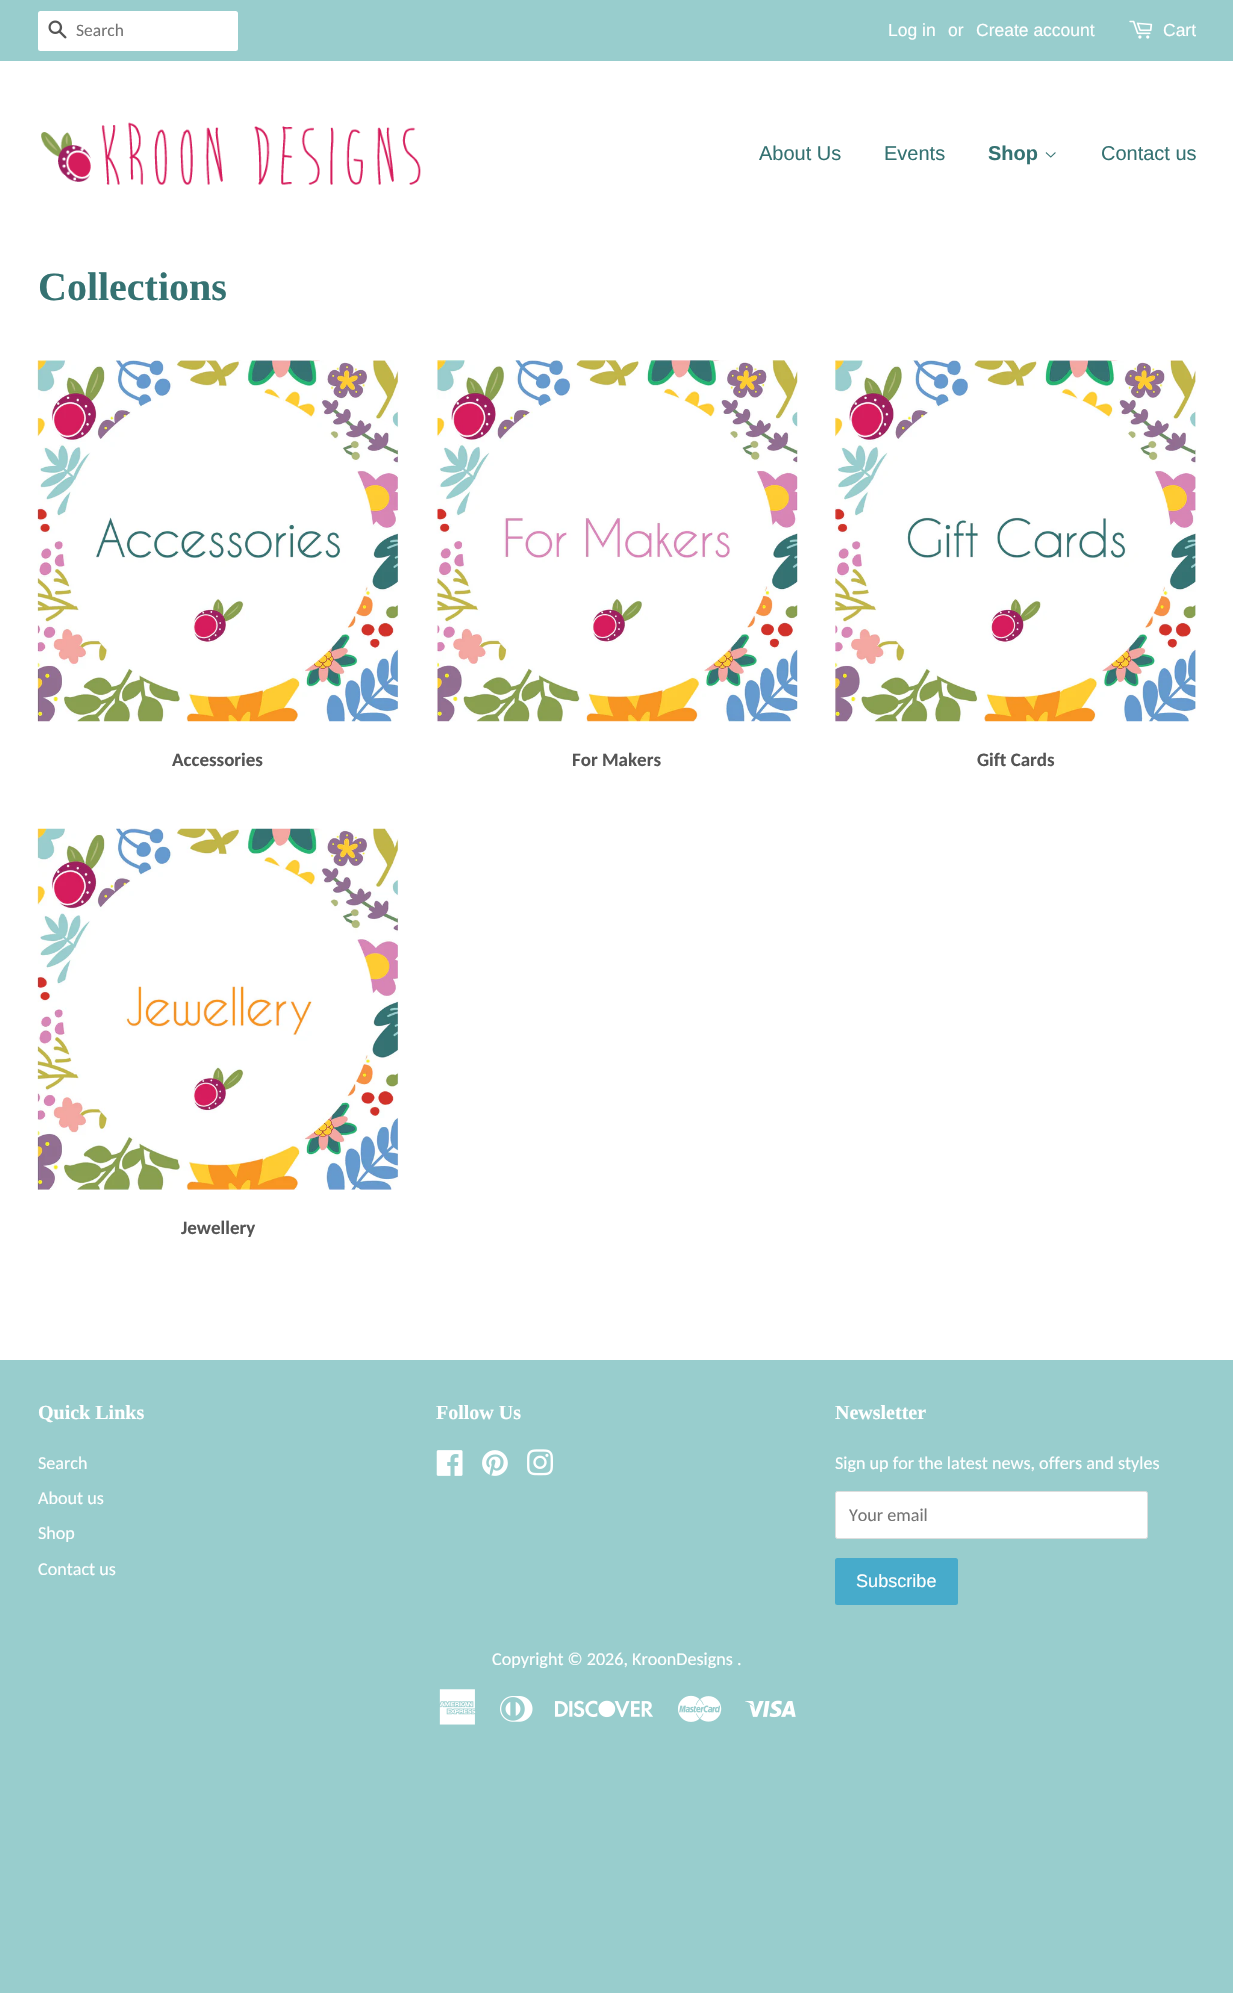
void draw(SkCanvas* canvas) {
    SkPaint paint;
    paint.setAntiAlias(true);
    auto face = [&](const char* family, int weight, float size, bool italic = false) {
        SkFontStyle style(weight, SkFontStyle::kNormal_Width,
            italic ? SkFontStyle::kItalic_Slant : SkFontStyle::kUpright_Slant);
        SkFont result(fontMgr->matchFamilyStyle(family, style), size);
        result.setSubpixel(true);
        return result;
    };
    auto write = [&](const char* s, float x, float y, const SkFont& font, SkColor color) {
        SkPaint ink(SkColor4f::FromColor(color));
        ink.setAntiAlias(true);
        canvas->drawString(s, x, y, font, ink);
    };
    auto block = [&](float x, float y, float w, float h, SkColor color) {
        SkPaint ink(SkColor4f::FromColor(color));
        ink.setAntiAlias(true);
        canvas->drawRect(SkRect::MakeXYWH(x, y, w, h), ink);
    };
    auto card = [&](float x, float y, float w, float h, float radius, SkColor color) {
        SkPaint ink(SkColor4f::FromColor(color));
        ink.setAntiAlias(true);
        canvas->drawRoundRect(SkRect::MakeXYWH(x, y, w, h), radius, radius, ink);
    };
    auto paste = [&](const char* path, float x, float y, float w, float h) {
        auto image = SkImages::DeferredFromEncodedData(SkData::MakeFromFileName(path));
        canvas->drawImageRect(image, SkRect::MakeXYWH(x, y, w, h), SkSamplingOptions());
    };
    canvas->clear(SkColorSetRGB(152, 205, 205));
    block(0, 61, 1233, 1299, SK_ColorWHITE);
    card(38, 11, 200, 40, 2.5f, SK_ColorWHITE);
    paste("pic1.png", 48, 20, 19, 19);
    auto kFont1 = face("Carlito", 400, 17.5f);
    write("Search", 76, 36, kFont1, SkColorSetRGB(117, 117, 117));
    auto kFont2 = face("Liberation Sans", 400, 17.5f);
    write("Log in", 888, 36, kFont2, SK_ColorWHITE);
    write("or", 948, 36, kFont2, SK_ColorWHITE);
    write("Create account", 976, 36, kFont2, SK_ColorWHITE);
    paste("pic2.png", 1129, 20, 24, 19);
    write("Cart", 1163, 36, kFont2, SK_ColorWHITE);
    paste("pic3.png", 41, 122, 380, 63);
    auto kFont3 = face("Liberation Sans", 400, 20);
    write("About Us", 759, 160, kFont3, SkColorSetRGB(53, 114, 114));
    write("Events", 884, 160, kFont3, SkColorSetRGB(53, 114, 114));
    auto kFont4 = face("Liberation Sans", 700, 20);
    write("Shop", 988, 160, kFont4, SkColorSetRGB(53, 114, 114));
    paste("pic4.png", 1045, 152, 11, 6);
    write("Contact us", 1101, 160, kFont3, SkColorSetRGB(53, 114, 114));
    auto kFont5 = face("Liberation Serif", 700, 40);
    write("Collections", 38, 300, kFont5, SkColorSetRGB(53, 114, 114));
    paste("pic5.png", 37, 360, 362, 362);
    auto kFont6 = face("Carlito", 700, 19);
    write("Accessories", 172, 766, kFont6, SkColorSetRGB(85, 85, 85));
    paste("pic6.png", 436, 360, 362, 362);
    write("For Makers", 572, 766, kFont6, SkColorSetRGB(85, 85, 85));
    paste("pic7.png", 835, 360, 361, 362);
    write("Gift Cards", 977, 766, kFont6, SkColorSetRGB(85, 85, 85));
    paste("pic8.png", 37, 828, 362, 362);
    write("Jewellery", 181, 1234, kFont6, SkColorSetRGB(85, 85, 85));
    auto kFont7 = face("Liberation Serif", 700, 20);
    write("Quick Links", 38, 1419, kFont7, SK_ColorWHITE);
    auto kFont8 = face("Carlito", 400, 18.1f);
    write("Search", 38, 1469, kFont8, SK_ColorWHITE);
    write("About us", 38, 1504, kFont8, SK_ColorWHITE);
    write("Shop", 38, 1539, kFont8, SK_ColorWHITE);
    write("Contact us", 38, 1575, kFont8, SK_ColorWHITE);
    write("Follow Us", 436, 1419, kFont7, SK_ColorWHITE);
    paste("pic9.png", 436, 1450, 27, 26);
    paste("pic10.png", 482, 1450, 26, 26);
    paste("pic11.png", 527, 1449, 26, 27);
    write("Newsletter", 835, 1419, kFont7, SK_ColorWHITE);
    write("Sign up for the latest news, offers and styles", 835, 1469, kFont8, SK_ColorWHITE);
    paint.setColor(SK_ColorWHITE);
    canvas->drawRoundRect(SkRect::MakeXYWH(835.5f, 1491.5f, 312, 47), 2, 2, paint);
    paint.setStyle(SkPaint::kStroke_Style);
    paint.setStrokeWidth(1);
    paint.setColor(SkColorSetRGB(221, 221, 221));
    canvas->drawRoundRect(SkRect::MakeXYWH(835.5f, 1491.5f, 312, 47), 2, 2, paint);
    write("Your email", 849, 1521, kFont8, SkColorSetRGB(117, 117, 117));
    card(835, 1558, 123, 47, 2.5f, SkColorSetRGB(71, 171, 203));
    auto kFont9 = face("Liberation Sans", 400, 18.1f);
    write("Subscribe", 856, 1587, kFont9, SK_ColorWHITE);
    write("Copyright © 2026, KroonDesigns .", 492, 1665, kFont8, SK_ColorWHITE);
    paste("pic12.png", 439, 1689, 37, 36);
    paste("pic13.png", 500, 1696, 33, 26);
    paste("pic14.png", 555, 1700, 98, 18);
    paste("pic15.png", 678, 1695, 44, 27);
    paste("pic16.png", 745, 1700, 51, 18);
}
